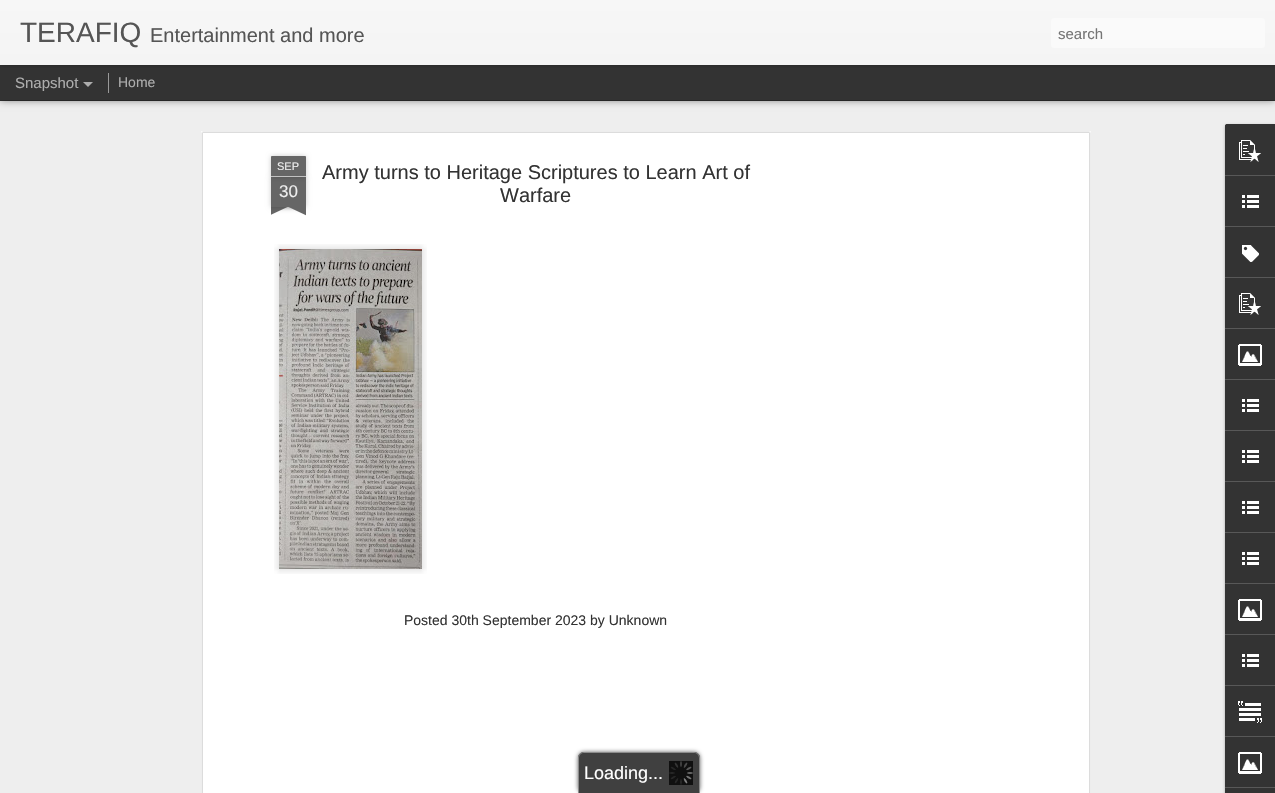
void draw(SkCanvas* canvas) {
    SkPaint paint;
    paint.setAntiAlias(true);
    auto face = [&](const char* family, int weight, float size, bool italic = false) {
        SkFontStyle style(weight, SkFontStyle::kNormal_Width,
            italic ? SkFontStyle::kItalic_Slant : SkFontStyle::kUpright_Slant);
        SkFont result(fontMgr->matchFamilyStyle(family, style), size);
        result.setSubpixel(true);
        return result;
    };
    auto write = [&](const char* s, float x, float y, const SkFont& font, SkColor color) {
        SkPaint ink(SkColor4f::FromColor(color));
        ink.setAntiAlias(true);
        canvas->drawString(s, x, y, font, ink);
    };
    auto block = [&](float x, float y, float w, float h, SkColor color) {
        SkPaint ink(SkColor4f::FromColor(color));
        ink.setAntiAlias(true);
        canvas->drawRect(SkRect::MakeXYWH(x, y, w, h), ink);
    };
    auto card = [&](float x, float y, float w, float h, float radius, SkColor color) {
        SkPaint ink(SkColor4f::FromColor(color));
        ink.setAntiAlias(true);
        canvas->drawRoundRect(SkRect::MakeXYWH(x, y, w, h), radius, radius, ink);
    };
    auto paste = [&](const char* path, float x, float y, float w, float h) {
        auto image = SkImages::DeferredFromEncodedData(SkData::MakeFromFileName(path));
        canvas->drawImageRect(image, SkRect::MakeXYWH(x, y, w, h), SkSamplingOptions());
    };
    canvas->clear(SkColorSetRGB(51, 51, 51));
    block(0, 101, 1275, 692, SkColorSetRGB(238, 238, 238));
    paint.setColor(SkColorSetARGB(128, 0, 0, 0));
    paint.setMaskFilter(SkMaskFilter::MakeBlur(kNormal_SkBlurStyle, 4));
    canvas->drawRect(SkRect::MakeXYWH(0, 65, 1275, 35), paint);
    paint.setMaskFilter(nullptr);
    block(0, 65, 1275, 35, SkColorSetRGB(51, 51, 51));
    block(108, 73, 1, 20, SkColorSetRGB(153, 153, 153));
    paint.setColor(SkColorSetARGB(77, 0, 0, 0));
    paint.setMaskFilter(SkMaskFilter::MakeBlur(kNormal_SkBlurStyle, 2.5f));
    canvas->drawRect(SkRect::MakeXYWH(0, 0, 1275, 65), paint);
    paint.setMaskFilter(nullptr);
    {
        const SkColor colors[] = {SkColorSetRGB(247, 247, 247), SkColorSetRGB(244, 244, 244)};
        const float stops[] = {0, 1};
        const SkPoint ends[] = {{0, 0}, {0, 65}};
        paint.setShader(SkGradientShader::MakeLinear(ends, colors, stops, 2, SkTileMode::kClamp));
        paint.setAlpha(255);
    }
    canvas->drawRect(SkRect::MakeXYWH(0, 0, 1275, 65), paint);
    auto kFont1 = face("Liberation Sans", 400, 28);
    write("TERAFIQ", 20, 42, kFont1, SkColorSetRGB(85, 85, 85));
    auto kFont2 = face("Liberation Sans", 400, 20);
    write("Entertainment and more", 150, 42, kFont2, SkColorSetRGB(85, 85, 85));
    card(1051, 18, 214, 30, 3, SkColorSetRGB(250, 250, 250));
    auto kFont3 = face("Liberation Sans", 400, 15);
    write("search", 1058, 39, kFont3, SkColorSetRGB(117, 117, 117));
    write("Snapshot", 15, 88, kFont3, SkColorSetRGB(173, 173, 173));
    paint.setShader(nullptr);
    paint.setColor(SkColorSetRGB(173, 173, 173));
    canvas->drawPath(SkPathBuilder().moveTo(83, 82).lineTo(93, 82).lineTo(88, 87).close().detach(), paint);
    auto kFont4 = face("Liberation Sans", 400, 14);
    write("Home", 118, 87, kFont4, SkColorSetRGB(173, 173, 173));
    block(201, 131, 890, 662, SK_ColorWHITE);
    paste("pic1.png", 201, 131, 890, 662);
    paint.setColor(SkColorSetARGB(51, 0, 0, 0));
    paint.setMaskFilter(SkMaskFilter::MakeBlur(kNormal_SkBlurStyle, 2.5f));
    canvas->drawRect(SkRect::MakeXYWH(271, 177, 35, 30), paint);
    paint.setMaskFilter(nullptr);
    block(271, 177, 35, 30, SkColorSetRGB(102, 102, 102));
    paint.setMaskFilter(SkMaskFilter::MakeBlur(kNormal_SkBlurStyle, 2.5f));
    canvas->drawRoundRect(SkRect::MakeXYWH(271, 156, 35, 21), 1, 1, paint);
    paint.setMaskFilter(nullptr);
    paint.setColor(SkColorSetRGB(102, 102, 102));
    canvas->drawPath(SkPathBuilder().moveTo(272, 156).lineTo(305, 156).cubicTo(305.5f, 156, 306, 156.5f, 306, 157).lineTo(306, 177).lineTo(271, 177).lineTo(271, 157).cubicTo(271, 156.5f, 271.5f, 156, 272, 156).close().detach(), paint);
    block(271, 176, 35, 1, SkColorSetRGB(194, 194, 194));
    auto kFont5 = face("Liberation Sans", 400, 11);
    write("SEP", 277, 170, kFont5, SkColorSetRGB(238, 238, 238));
    auto kFont6 = face("Liberation Sans", 400, 17);
    write("30", 279, 197, kFont6, SkColorSetRGB(238, 238, 238));
    canvas->save();
    canvas->clipRect(SkRect::MakeXYWH(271, 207, 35, 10));
    paint.setColor(SkColorSetARGB(51, 0, 0, 0));
    paint.setMaskFilter(SkMaskFilter::MakeBlur(kNormal_SkBlurStyle, 2.5f));
    canvas->drawRect(SkRect::MakeXYWH(262, 197, 50, 10), paint);
    paint.setMaskFilter(nullptr);
    canvas->restore();
    canvas->save();
    canvas->clipRect(SkRect::MakeXYWH(271, 207, 35, 10));
    paint.setColor(SkColorSetRGB(102, 102, 102));
    canvas->drawPath(SkPathBuilder().moveTo(262, 208).lineTo(307, 187).lineTo(311, 196).lineTo(266, 217).close().detach(), paint);
    canvas->restore();
    canvas->save();
    canvas->clipRect(SkRect::MakeXYWH(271, 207, 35, 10));
    paint.setColor(SkColorSetARGB(51, 0, 0, 0));
    paint.setMaskFilter(SkMaskFilter::MakeBlur(kNormal_SkBlurStyle, 2.5f));
    canvas->drawRect(SkRect::MakeXYWH(265, 197, 50, 10), paint);
    paint.setMaskFilter(nullptr);
    canvas->restore();
    canvas->save();
    canvas->clipRect(SkRect::MakeXYWH(271, 207, 35, 10));
    paint.setColor(SkColorSetRGB(102, 102, 102));
    canvas->drawPath(SkPathBuilder().moveTo(269, 187).lineTo(314, 208).lineTo(310, 217).lineTo(265, 196).close().detach(), paint);
    canvas->restore();
    write("Army turns to Heritage Scriptures to Learn Art of", 322, 179, kFont2, SkColorSetRGB(51, 51, 51));
    write("Warfare", 500, 202, kFont2, SkColorSetRGB(51, 51, 51));
    paste("pic2.png", 274, 244, 153, 330);
    write("Posted 30th September 2023 by Unknown", 404, 625, kFont4, SkColorSetRGB(51, 51, 51));
    paint.setColor(SkColorSetARGB(77, 0, 0, 0));
    paint.setMaskFilter(SkMaskFilter::MakeBlur(kNormal_SkBlurStyle, 1.5f));
    canvas->drawRoundRect(SkRect::MakeXYWH(1225, 125, 50, 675), 2, 2, paint);
    paint.setMaskFilter(nullptr);
    paint.setColor(SkColorSetRGB(51, 51, 51));
    canvas->drawPath(SkPathBuilder().moveTo(1227, 124).lineTo(1275, 124).lineTo(1275, 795).lineTo(1227, 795).cubicTo(1226, 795, 1225, 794, 1225, 793).lineTo(1225, 126).cubicTo(1225, 125, 1226, 124, 1227, 124).close().detach(), paint);
    canvas->drawPath(SkPathBuilder().moveTo(1227, 124).lineTo(1275, 124).lineTo(1275, 175).lineTo(1225, 175).lineTo(1225, 126).cubicTo(1225, 125, 1226, 124, 1227, 124).close().detach(), paint);
    paste("pic3.png", 1239, 140, 22, 22);
    block(1225, 175, 50, 1, SkColorSetRGB(88, 88, 88));
    paste("pic4.png", 1242, 195, 17, 13);
    block(1225, 226, 50, 1, SkColorSetRGB(88, 88, 88));
    paste("pic5.png", 1242, 245, 17, 17);
    block(1225, 277, 50, 1, SkColorSetRGB(88, 88, 88));
    paste("pic3.png", 1239, 293, 22, 22);
    block(1225, 328, 50, 1, SkColorSetRGB(88, 88, 88));
    paste("pic6.png", 1238, 344, 24, 22);
    block(1225, 379, 50, 1, SkColorSetRGB(88, 88, 88));
    paste("pic4.png", 1242, 399, 17, 13);
    block(1225, 430, 50, 1, SkColorSetRGB(88, 88, 88));
    paste("pic4.png", 1242, 450, 17, 13);
    block(1225, 481, 50, 1, SkColorSetRGB(88, 88, 88));
    paste("pic4.png", 1242, 501, 17, 13);
    block(1225, 532, 50, 1, SkColorSetRGB(88, 88, 88));
    paste("pic4.png", 1242, 552, 17, 13);
    block(1225, 583, 50, 1, SkColorSetRGB(88, 88, 88));
    paste("pic6.png", 1238, 599, 24, 22);
    block(1225, 634, 50, 1, SkColorSetRGB(88, 88, 88));
    paste("pic4.png", 1242, 654, 17, 13);
    block(1225, 685, 50, 1, SkColorSetRGB(88, 88, 88));
    paste("pic7.png", 1238, 701, 24, 22);
    block(1225, 736, 50, 1, SkColorSetRGB(88, 88, 88));
    paste("pic6.png", 1238, 752, 24, 22);
    block(1225, 787, 50, 1, SkColorSetRGB(88, 88, 88));
    paint.setColor(SkColorSetRGB(102, 102, 102));
    paint.setMaskFilter(SkMaskFilter::MakeBlur(kNormal_SkBlurStyle, 2));
    canvas->drawRoundRect(SkRect::MakeXYWH(578, 752, 122, 41), 6, 6, paint);
    paint.setMaskFilter(nullptr);
    paint.setColor(SkColorSetRGB(64, 64, 64));
    canvas->drawPath(SkPathBuilder().moveTo(584, 752).lineTo(694, 752).cubicTo(697.5f, 752, 700, 754.5f, 700, 758).lineTo(700, 793).lineTo(578, 793).lineTo(578, 758).cubicTo(578, 754.5f, 580.5f, 752, 584, 752).close().detach(), paint);
    paint.setColor(SkColorSetRGB(140, 140, 140));
    canvas->drawPath(SkPathBuilder(SkPathFillType::kEvenOdd).moveTo(584, 752).lineTo(694, 752).cubicTo(697, 752, 700, 755, 700, 758).lineTo(700, 793).lineTo(578, 793).lineTo(578, 758).cubicTo(578, 755, 581, 752, 584, 752).close().moveTo(584, 753).lineTo(694, 753).cubicTo(697, 753, 699, 755, 699, 758).lineTo(699, 793).lineTo(579, 793).lineTo(579, 758).cubicTo(579, 755, 581, 753, 584, 753).close().detach(), paint);
    paste("pic8.png", 669, 761, 24, 24);
    auto kFont7 = face("Liberation Sans", 400, 18);
    write("Loading...", 584, 779, kFont7, SK_ColorWHITE);
}
